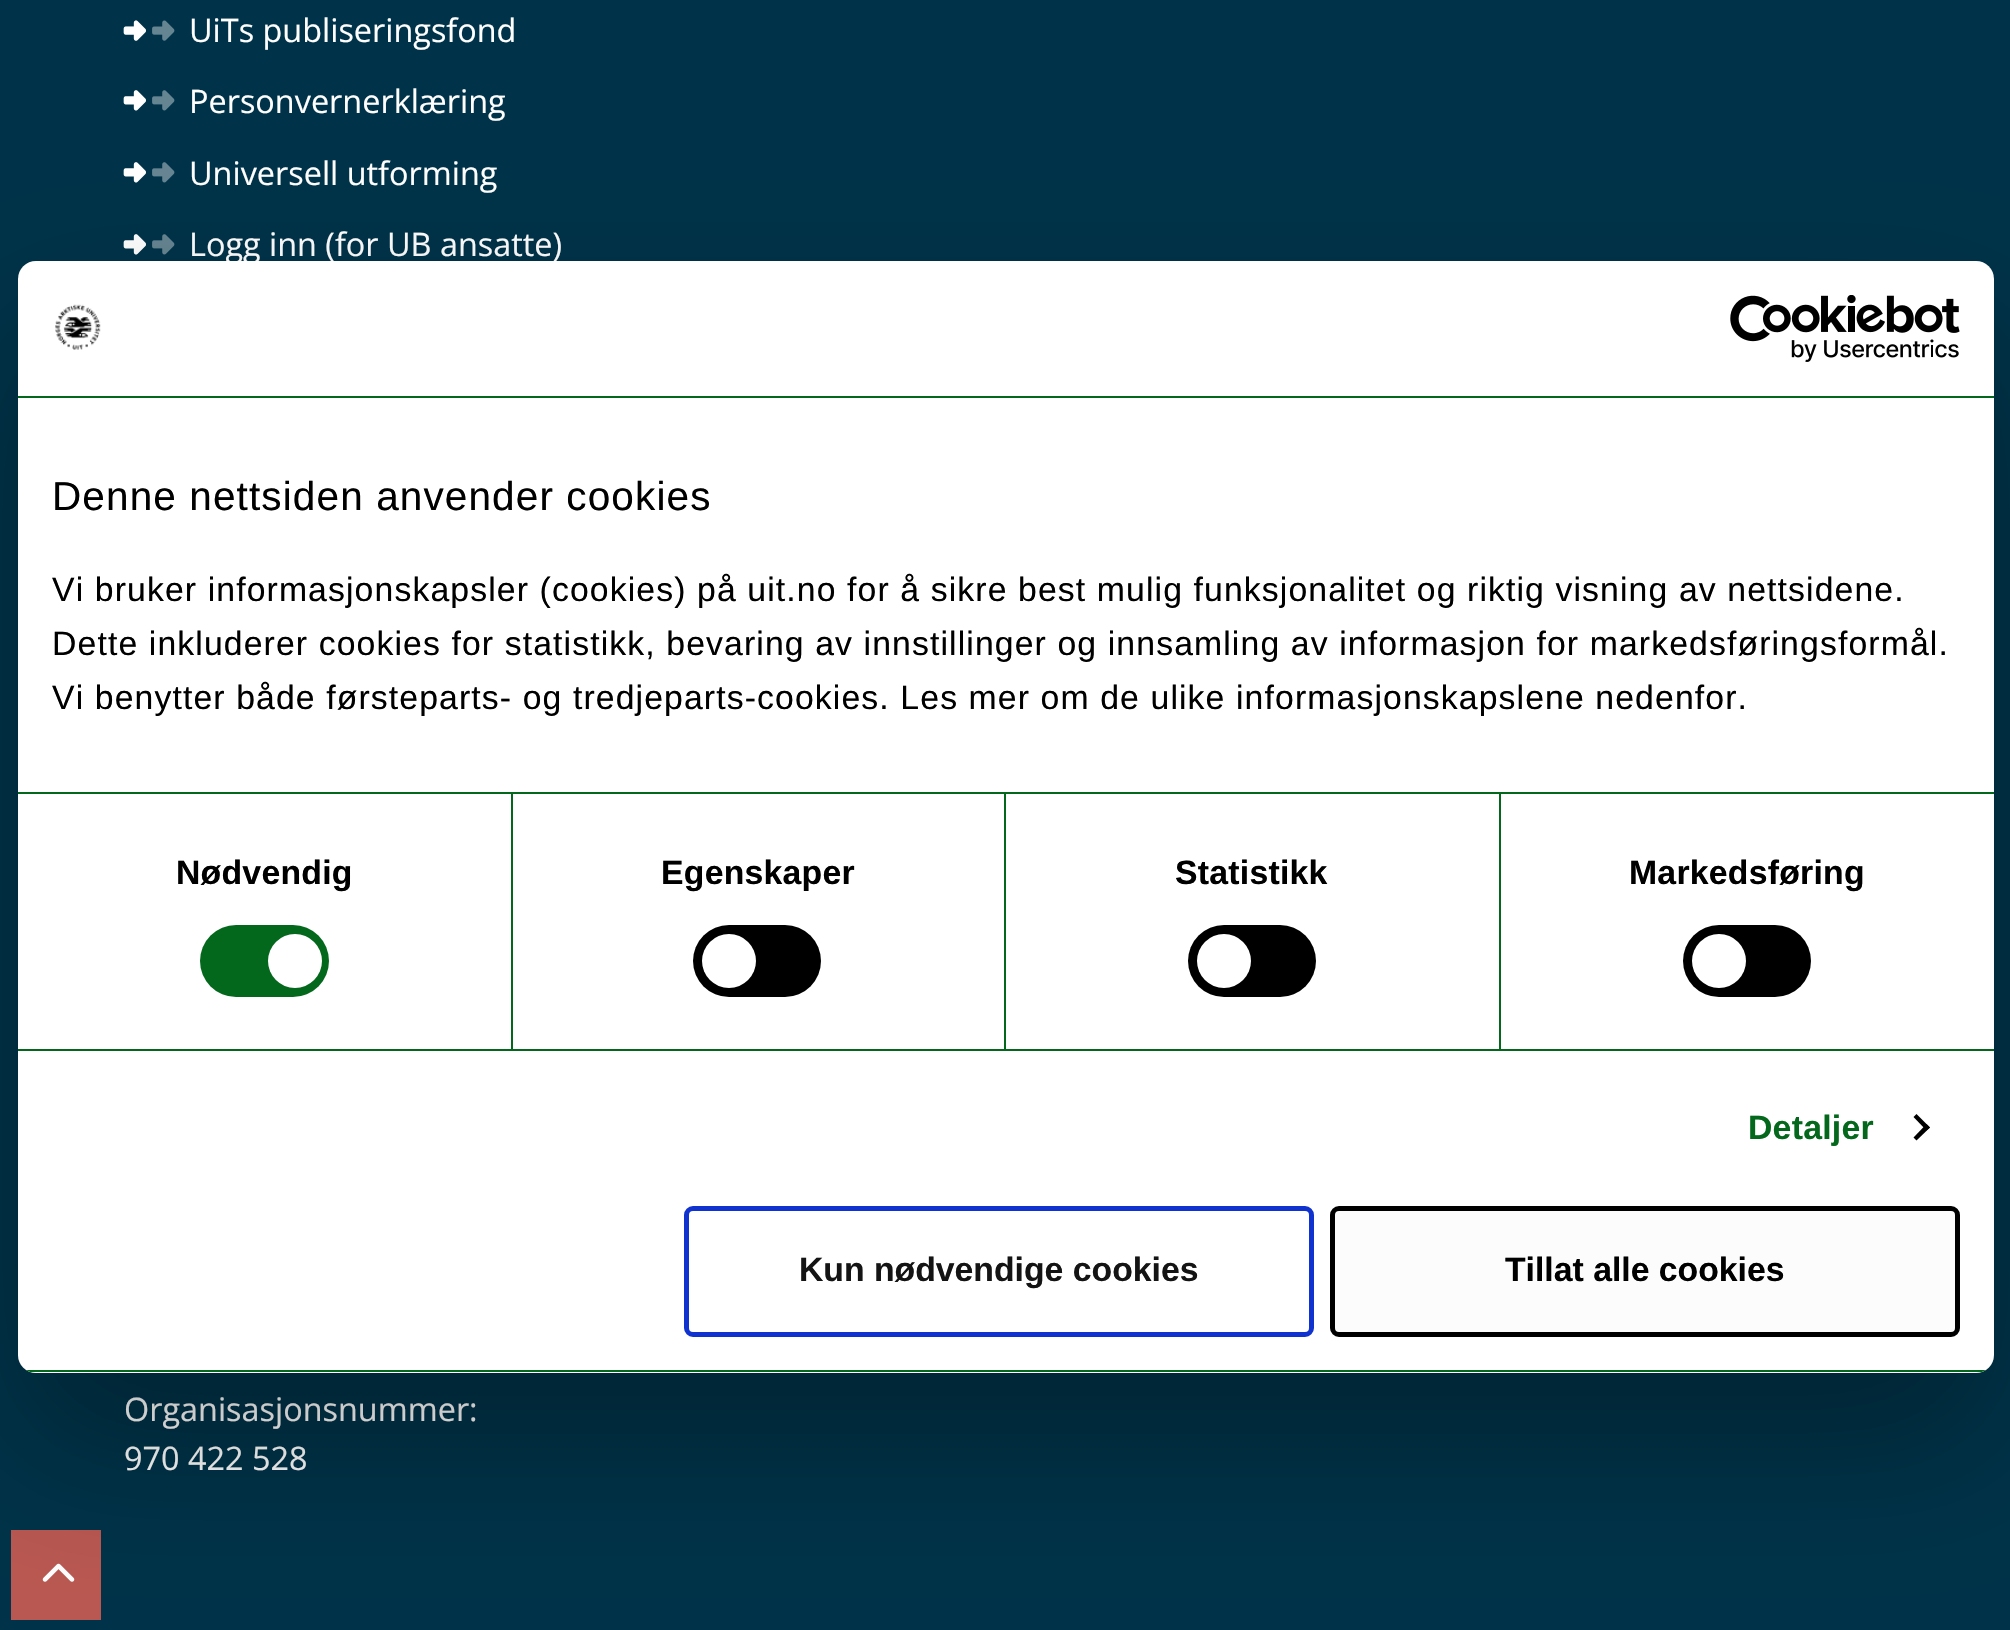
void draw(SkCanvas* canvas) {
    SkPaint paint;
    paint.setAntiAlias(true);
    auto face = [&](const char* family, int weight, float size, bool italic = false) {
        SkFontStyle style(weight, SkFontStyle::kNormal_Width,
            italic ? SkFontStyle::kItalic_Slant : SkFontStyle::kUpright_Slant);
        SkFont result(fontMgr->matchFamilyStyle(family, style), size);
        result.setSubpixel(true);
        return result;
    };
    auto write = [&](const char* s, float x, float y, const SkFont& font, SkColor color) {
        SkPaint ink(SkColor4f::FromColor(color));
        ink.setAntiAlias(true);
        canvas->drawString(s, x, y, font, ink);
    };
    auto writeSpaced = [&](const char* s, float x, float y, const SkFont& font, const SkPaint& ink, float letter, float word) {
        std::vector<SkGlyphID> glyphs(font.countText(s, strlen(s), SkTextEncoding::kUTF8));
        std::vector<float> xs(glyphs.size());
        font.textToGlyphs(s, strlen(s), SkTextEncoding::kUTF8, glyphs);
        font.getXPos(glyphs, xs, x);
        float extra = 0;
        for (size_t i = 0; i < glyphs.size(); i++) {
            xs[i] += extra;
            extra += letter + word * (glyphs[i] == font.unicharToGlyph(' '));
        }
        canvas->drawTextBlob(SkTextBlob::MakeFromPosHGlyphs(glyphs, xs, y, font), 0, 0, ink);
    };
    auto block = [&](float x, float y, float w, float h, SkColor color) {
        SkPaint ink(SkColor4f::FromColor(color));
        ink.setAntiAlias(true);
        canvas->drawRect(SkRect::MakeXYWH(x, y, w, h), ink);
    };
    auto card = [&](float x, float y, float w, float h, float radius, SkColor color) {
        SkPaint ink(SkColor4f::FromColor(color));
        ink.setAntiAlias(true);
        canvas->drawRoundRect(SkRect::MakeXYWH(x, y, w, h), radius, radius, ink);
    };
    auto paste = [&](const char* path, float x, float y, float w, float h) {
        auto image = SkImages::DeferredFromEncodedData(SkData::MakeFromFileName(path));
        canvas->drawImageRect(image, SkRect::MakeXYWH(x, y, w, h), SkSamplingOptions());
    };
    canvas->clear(SkColorSetRGB(0, 51, 73));
    paste("pic1.png", 123, 20, 23, 21);
    paste("pic2.png", 123, 20, 52, 21);
    auto kFont1 = face("Open Sans", 400, 32.4f);
    write("UiTs publiseringsfond", 189, 42, kFont1, SK_ColorWHITE);
    paste("pic3.png", 123, 90, 23, 21);
    paste("pic4.png", 123, 90, 52, 21);
    write("Personvernerklæring", 189, 113, kFont1, SK_ColorWHITE);
    paste("pic3.png", 123, 162, 23, 21);
    paste("pic4.png", 123, 162, 52, 21);
    write("Universell utforming", 189, 185, kFont1, SK_ColorWHITE);
    paste("pic3.png", 123, 234, 23, 21);
    paste("pic4.png", 123, 234, 52, 21);
    write("Logg inn (for UB ansatte)", 189, 256, kFont1, SK_ColorWHITE);
    write("Organisasjonsnummer:", 124, 1421, kFont1, SK_ColorWHITE);
    write("970 422 528", 124, 1470, kFont1, SK_ColorWHITE);
    block(11, 1530, 90, 90, SkColorSetRGB(186, 88, 82));
    paste("pic7.png", 42, 1563, 33, 19);
    paint.setColor(SkColorSetARGB(77, 0, 0, 0));
    paint.setMaskFilter(SkMaskFilter::MakeBlur(kNormal_SkBlurStyle, 76.5f));
    canvas->drawRoundRect(SkRect::MakeXYWH(18, 333, 1976, 1112), 18, 18, paint);
    paint.setMaskFilter(nullptr);
    card(18, 261, 1976, 1112, 18, SK_ColorWHITE);
    block(18, 396, 1976, 2, SkColorSetRGB(3, 104, 27));
    paste("pic5.png", 55, 304, 46, 46);
    paste("pic6.png", 1730, 295, 230, 67);
    block(18, 792, 1976, 2, SkColorSetRGB(3, 104, 27));
    auto kFont2 = face("Liberation Sans", 400, 40.5f);
    paint.setColor(SK_ColorBLACK);
    writeSpaced("Denne nettsiden anvender cookies", 52, 510, kFont2, paint, 1.12f, 0);
    auto kFont3 = face("Liberation Sans", 400, 33.75f);
    writeSpaced("Vi bruker informasjonskapsler (cookies) på uit.no for å sikre best mulig funksjonalitet og riktig visning av nettsidene.", 52, 601, kFont3, paint, 1.12f, 0);
    writeSpaced("Dette inkluderer cookies for statistikk, bevaring av innstillinger og innsamling av informasjon for markedsføringsformål.", 52, 655, kFont3, paint, 1.12f, 0);
    writeSpaced("Vi benytter både førsteparts- og tredjeparts-cookies. Les mer om de ulike informasjonskapslene nedenfor.", 52, 709, kFont3, paint, 1.12f, 0);
    block(18, 1049, 1976, 2, SkColorSetRGB(3, 104, 27));
    block(511, 794, 2, 255, SkColorSetRGB(3, 104, 27));
    auto kFont4 = face("Liberation Sans", 700, 33.75f);
    writeSpaced("Nødvendig", 176, 884, kFont4, paint, 0.25f, 0);
    card(200, 925, 129, 72, 36, SkColorSetRGB(3, 104, 27));
    paint.setColor(SK_ColorWHITE);
    canvas->drawCircle(295, 961, 27, paint);
    block(1004, 794, 2, 255, SkColorSetRGB(3, 104, 27));
    paint.setColor(SK_ColorBLACK);
    writeSpaced("Egenskaper", 661, 884, kFont4, paint, 0.25f, 0);
    card(693, 925, 128, 72, 36, SK_ColorBLACK);
    paint.setColor(SK_ColorWHITE);
    canvas->drawCircle(729, 961, 27, paint);
    block(1499, 794, 2, 255, SkColorSetRGB(3, 104, 27));
    paint.setColor(SK_ColorBLACK);
    writeSpaced("Statistikk", 1175, 884, kFont4, paint, 0.25f, 0);
    card(1188, 925, 128, 72, 36, SK_ColorBLACK);
    paint.setColor(SK_ColorWHITE);
    canvas->drawCircle(1224, 961, 27, paint);
    paint.setColor(SK_ColorBLACK);
    writeSpaced("Markedsføring", 1629, 884, kFont4, paint, 0.25f, 0);
    card(1683, 925, 128, 72, 36, SK_ColorBLACK);
    paint.setColor(SK_ColorWHITE);
    canvas->drawCircle(1719, 961, 27, paint);
    paint.setColor(SkColorSetRGB(3, 104, 27));
    writeSpaced("Detaljer", 1748, 1139, kFont4, paint, 0.25f, 0);
    paint.setColor(SK_ColorBLACK);
    canvas->drawPath(SkPathBuilder().moveTo(1916.5f, 1114).lineTo(1930, 1127.5f).lineTo(1926.5f, 1130.5f).lineTo(1913.5f, 1117).close().detach(), paint);
    canvas->drawPath(SkPathBuilder().moveTo(1926.5f, 1124).lineTo(1930, 1127.5f).lineTo(1916.5f, 1140.5f).lineTo(1913.5f, 1137.5f).close().detach(), paint);
    canvas->save();
    canvas->clipPath(SkPathBuilder().moveTo(36, 261).lineTo(1976, 261).cubicTo(1986, 261, 1994, 269, 1994, 279).lineTo(1994, 1355).cubicTo(1994, 1365, 1986, 1373, 1976, 1373).lineTo(36, 1373).cubicTo(26, 1373, 18, 1365, 18, 1355).lineTo(18, 279).cubicTo(18, 269, 26, 261, 36, 261).close().detach(), true);
    block(18, 1370, 1976, 2, SkColorSetRGB(3, 104, 27));
    canvas->restore();
    paint.setStyle(SkPaint::kStroke_Style);
    paint.setStrokeWidth(5);
    paint.setColor(SkColorSetRGB(16, 50, 207));
    canvas->drawRoundRect(SkRect::MakeXYWH(686.5f, 1208.5f, 625, 126), 6.5f, 6.5f, paint);
    write("Kun nødvendige cookies", 799, 1281, kFont4, SkColorSetRGB(20, 20, 20));
    paint.setStyle(SkPaint::kFill_Style);
    paint.setColor(SkColorSetRGB(252, 252, 252));
    canvas->drawRoundRect(SkRect::MakeXYWH(1332.5f, 1208.5f, 625, 126), 6.5f, 6.5f, paint);
    paint.setStyle(SkPaint::kStroke_Style);
    paint.setColor(SK_ColorBLACK);
    canvas->drawRoundRect(SkRect::MakeXYWH(1332.5f, 1208.5f, 625, 126), 6.5f, 6.5f, paint);
    write("Tillat alle cookies", 1505, 1281, kFont4, SK_ColorBLACK);
}
